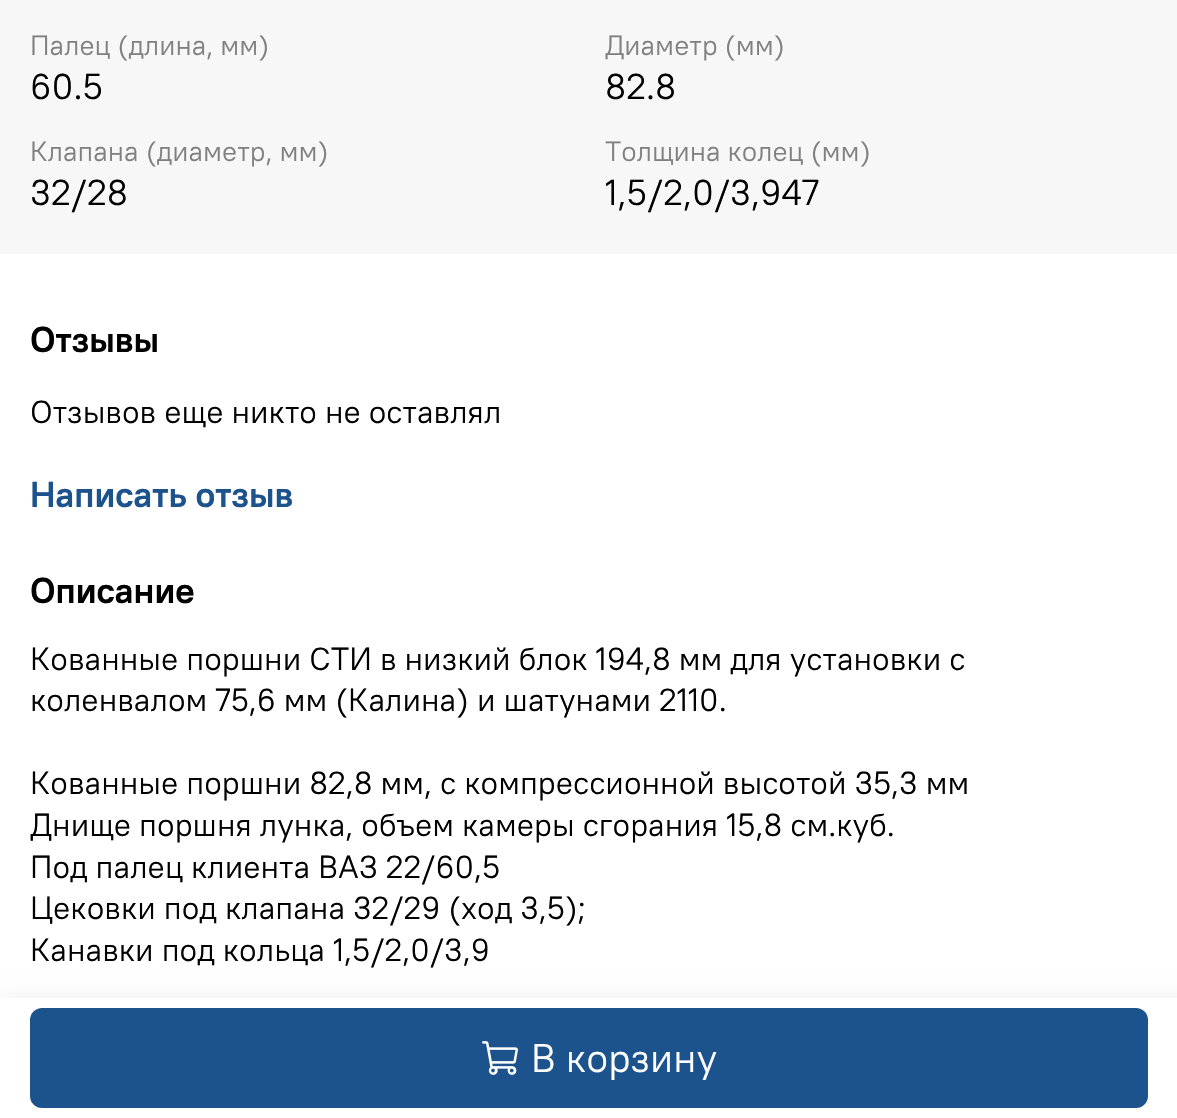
void draw(SkCanvas* canvas) {
    SkPaint paint;
    paint.setAntiAlias(true);
    auto face = [&](const char* family, int weight, float size, bool italic = false) {
        SkFontStyle style(weight, SkFontStyle::kNormal_Width,
            italic ? SkFontStyle::kItalic_Slant : SkFontStyle::kUpright_Slant);
        SkFont result(fontMgr->matchFamilyStyle(family, style), size);
        result.setSubpixel(true);
        return result;
    };
    auto write = [&](const char* s, float x, float y, const SkFont& font, SkColor color) {
        SkPaint ink(SkColor4f::FromColor(color));
        ink.setAntiAlias(true);
        canvas->drawString(s, x, y, font, ink);
    };
    auto block = [&](float x, float y, float w, float h, SkColor color) {
        SkPaint ink(SkColor4f::FromColor(color));
        ink.setAntiAlias(true);
        canvas->drawRect(SkRect::MakeXYWH(x, y, w, h), ink);
    };
    auto card = [&](float x, float y, float w, float h, float radius, SkColor color) {
        SkPaint ink(SkColor4f::FromColor(color));
        ink.setAntiAlias(true);
        canvas->drawRoundRect(SkRect::MakeXYWH(x, y, w, h), radius, radius, ink);
    };
    auto paste = [&](const char* path, float x, float y, float w, float h) {
        auto image = SkImages::DeferredFromEncodedData(SkData::MakeFromFileName(path));
        canvas->drawImageRect(image, SkRect::MakeXYWH(x, y, w, h), SkSamplingOptions());
    };
    canvas->clear(SK_ColorWHITE);
    block(0, 0, 1177, 254, SkColorSetRGB(247, 247, 247));
    auto kFont1 = face("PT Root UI", 400, 28);
    write("Палец (длина, мм)", 30, 55, kFont1, SkColorSetRGB(128, 128, 128));
    auto kFont2 = face("PT Root UI", 400, 36);
    write("60.5", 30, 99, kFont2, SK_ColorBLACK);
    write("Диаметр (мм)", 605, 55, kFont1, SkColorSetRGB(128, 128, 128));
    write("82.8", 605, 99, kFont2, SK_ColorBLACK);
    write("Клапана (диаметр, мм)", 30, 161, kFont1, SkColorSetRGB(128, 128, 128));
    write("32/28", 30, 205, kFont2, SK_ColorBLACK);
    write("Толщина колец (мм)", 605, 161, kFont1, SkColorSetRGB(128, 128, 128));
    write("1,5/2,0/3,947", 605, 205, kFont2, SK_ColorBLACK);
    auto kFont3 = face("PT Root UI", 700, 36);
    write("Отзывы", 30, 352, kFont3, SK_ColorBLACK);
    auto kFont4 = face("PT Root UI", 400, 32);
    write("Отзывов еще никто не оставлял", 30, 423, kFont4, SK_ColorBLACK);
    write("Написать отзыв", 30, 507, kFont3, SkColorSetRGB(29, 83, 140));
    paint.setColor(SkColorSetARGB(20, 0, 0, 0));
    paint.setMaskFilter(SkMaskFilter::MakeBlur(kNormal_SkBlurStyle, 10));
    canvas->drawRect(SkRect::MakeXYWH(8, 998, 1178, 120), paint);
    paint.setMaskFilter(nullptr);
    block(0, 998, 1177, 120, SK_ColorWHITE);
    card(30, 1008, 1118, 100, 12, SkColorSetRGB(29, 83, 140));
    paste("pic1.png", 482, 1041, 36, 34);
    auto kFont5 = face("PT Root UI", 400, 40);
    write("В корзину", 531, 1072, kFont5, SK_ColorWHITE);
    write("Описание", 30, 603, kFont3, SK_ColorBLACK);
    write("Кованные поршни СТИ в низкий блок 194,8 мм для установки с", 30, 670, kFont4, SK_ColorBLACK);
    write("коленвалом 75,6 мм (Калина) и шатунами 2110.", 30, 711, kFont4, SK_ColorBLACK);
    write("Кованные поршни 82,8 мм, с компрессионной высотой 35,3 мм", 30, 794, kFont4, SK_ColorBLACK);
    write("Днище поршня лунка, объем камеры сгорания 15,8 см.куб.", 30, 836, kFont4, SK_ColorBLACK);
    write("Под палец клиента ВАЗ 22/60,5", 30, 878, kFont4, SK_ColorBLACK);
    write("Цековки под клапана 32/29 (ход 3,5);", 30, 919, kFont4, SK_ColorBLACK);
    write("Канавки под кольца 1,5/2,0/3,9", 30, 961, kFont4, SK_ColorBLACK);
}
